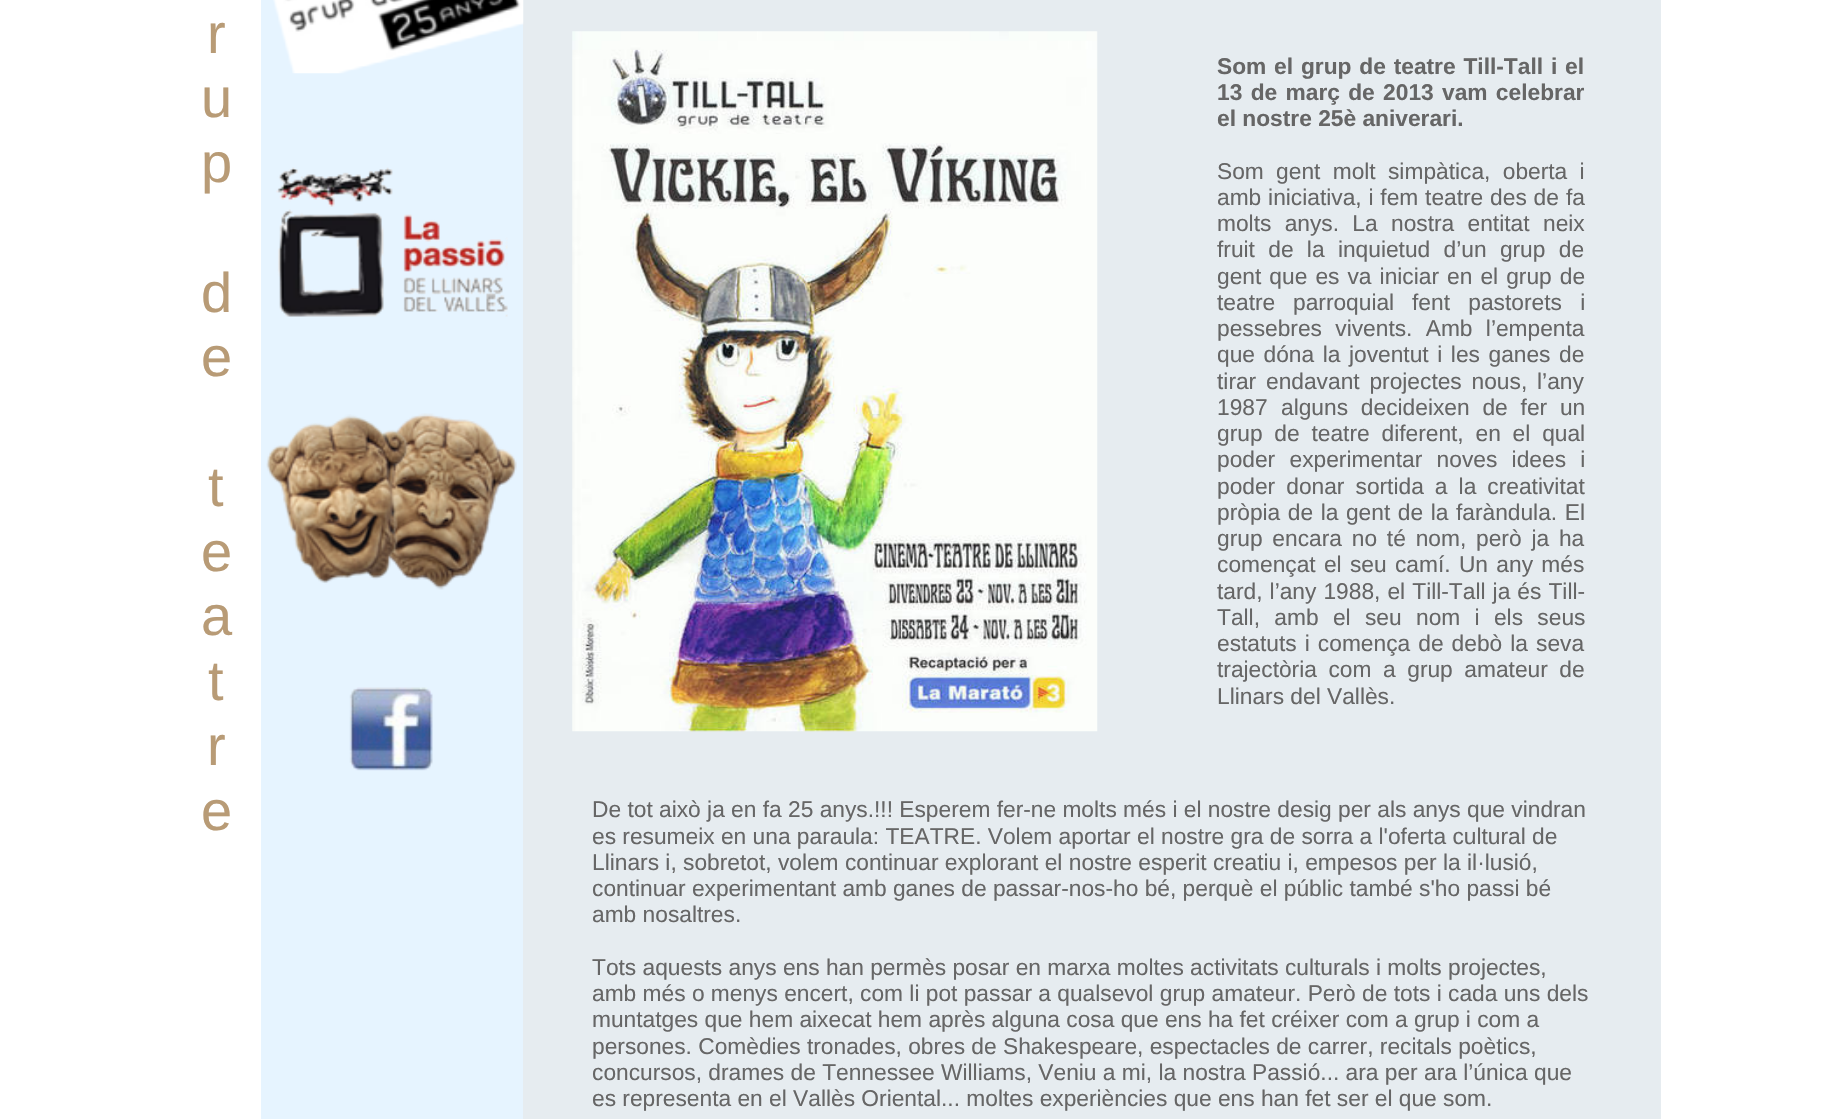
void draw(SkCanvas* canvas) {
    SkPaint paint;
    paint.setAntiAlias(true);
    auto face = [&](const char* family, int weight, float size, bool italic = false) {
        SkFontStyle style(weight, SkFontStyle::kNormal_Width,
            italic ? SkFontStyle::kItalic_Slant : SkFontStyle::kUpright_Slant);
        SkFont result(fontMgr->matchFamilyStyle(family, style), size);
        result.setSubpixel(true);
        return result;
    };
    auto write = [&](const char* s, float x, float y, const SkFont& font, SkColor color) {
        SkPaint ink(SkColor4f::FromColor(color));
        ink.setAntiAlias(true);
        canvas->drawString(s, x, y, font, ink);
    };
    auto writeSpaced = [&](const char* s, float x, float y, const SkFont& font, const SkPaint& ink, float letter, float word) {
        std::vector<SkGlyphID> glyphs(font.countText(s, strlen(s), SkTextEncoding::kUTF8));
        std::vector<float> xs(glyphs.size());
        font.textToGlyphs(s, strlen(s), SkTextEncoding::kUTF8, glyphs);
        font.getXPos(glyphs, xs, x);
        float extra = 0;
        for (size_t i = 0; i < glyphs.size(); i++) {
            xs[i] += extra;
            extra += letter + word * (glyphs[i] == font.unicharToGlyph(' '));
        }
        canvas->drawTextBlob(SkTextBlob::MakeFromPosHGlyphs(glyphs, xs, y, font), 0, 0, ink);
    };
    auto block = [&](float x, float y, float w, float h, SkColor color) {
        SkPaint ink(SkColor4f::FromColor(color));
        ink.setAntiAlias(true);
        canvas->drawRect(SkRect::MakeXYWH(x, y, w, h), ink);
    };
    auto paste = [&](const char* path, float x, float y, float w, float h) {
        auto image = SkImages::DeferredFromEncodedData(SkData::MakeFromFileName(path));
        canvas->drawImageRect(image, SkRect::MakeXYWH(x, y, w, h), SkSamplingOptions());
    };
    canvas->clear(SK_ColorWHITE);
    auto kFont1 = face("Liberation Sans", 400, 56);
    write("r", 207, 53, kFont1, SkColorSetRGB(184, 155, 118));
    write("u", 201, 117, kFont1, SkColorSetRGB(184, 155, 118));
    write("p", 201, 182, kFont1, SkColorSetRGB(184, 155, 118));
    write("d", 201, 312, kFont1, SkColorSetRGB(184, 155, 118));
    write("e", 201, 376, kFont1, SkColorSetRGB(184, 155, 118));
    write("t", 208, 506, kFont1, SkColorSetRGB(184, 155, 118));
    write("e", 201, 571, kFont1, SkColorSetRGB(184, 155, 118));
    write("a", 201, 635, kFont1, SkColorSetRGB(184, 155, 118));
    write("t", 208, 700, kFont1, SkColorSetRGB(184, 155, 118));
    write("r", 207, 765, kFont1, SkColorSetRGB(184, 155, 118));
    write("e", 201, 830, kFont1, SkColorSetRGB(184, 155, 118));
    block(261, 0, 262, 1119, SkColorSetRGB(230, 244, 255));
    block(523, 0, 1138, 1119, SkColorSetRGB(230, 236, 240));
    paste("pic1.png", 273, 0, 251, 74);
    paste("pic2.png", 276, 167, 232, 150);
    paste("pic3.png", 266, 413, 251, 177);
    paste("pic4.png", 349, 687, 84, 84);
    paste("pic5.png", 572, 31, 526, 701);
    auto kFont2 = face("Liberation Sans", 700, 22.75f);
    paint.setColor(SkColorSetRGB(102, 102, 102));
    writeSpaced("Som el grup de teatre Till-Tall i el", 1217, 74, kFont2, paint, 0, 1.5f);
    writeSpaced("13 de març de 2013 vam celebrar", 1217, 100, kFont2, paint, 0, 2);
    write("el nostre 25è aniverari.", 1217, 126, kFont2, SkColorSetRGB(102, 102, 102));
    auto kFont3 = face("Liberation Sans", 400, 22.75f);
    writeSpaced("Som gent molt simpàtica, oberta i", 1217, 179, kFont3, paint, 0, 6);
    writeSpaced("amb iniciativa, i fem teatre des de", 1217, 205, kFont3, paint, 0, 0.5f);
    write("fa", 1566, 205, kFont3, SkColorSetRGB(102, 102, 102));
    writeSpaced("molts anys. La nostra entitat", 1217, 231, kFont3, paint, 0, 7);
    write("neix", 1543, 231, kFont3, SkColorSetRGB(102, 102, 102));
    writeSpaced("fruit de la inquietud d’un grup de", 1217, 257, kFont3, paint, 0, 7);
    writeSpaced("gent que es va iniciar en el grup de", 1217, 284, kFont3, paint, 0, 1.75f);
    write("teatre", 1217, 310, kFont3, SkColorSetRGB(102, 102, 102));
    write("parroquial", 1293, 310, kFont3, SkColorSetRGB(102, 102, 102));
    writeSpaced("fent pastorets i", 1412, 310, kFont3, paint, 0, 12);
    writeSpaced("pessebres vivents. Amb l’empenta", 1217, 336, kFont3, paint, 0, 7);
    writeSpaced("que dóna la joventut i les ganes de", 1217, 362, kFont3, paint, 0, 2.25f);
    writeSpaced("tirar endavant projectes nous, l’any", 1217, 389, kFont3, paint, 0, 3.5f);
    write("1987", 1217, 415, kFont3, SkColorSetRGB(102, 102, 102));
    writeSpaced("alguns decideixen de fer un", 1281, 415, kFont3, paint, 0, 6.5f);
    writeSpaced("grup de teatre diferent, en el qual", 1217, 441, kFont3, paint, 0, 5.5f);
    writeSpaced("poder experimentar noves idees i", 1217, 467, kFont3, paint, 0, 8);
    writeSpaced("poder donar sortida a la creativitat", 1217, 494, kFont3, paint, 0, 4.75f);
    writeSpaced("pròpia de la gent de la faràndula. El", 1217, 520, kFont3, paint, 0, 1.25f);
    writeSpaced("grup encara no té nom, però ja ha", 1217, 546, kFont3, paint, 0, 3.5f);
    writeSpaced("començat el seu camí. Un any més", 1217, 572, kFont3, paint, 0, 2);
    writeSpaced("tard, l’any 1988, el Till-Tall ja és Till-", 1217, 599, kFont3, paint, 0, 0.75f);
    writeSpaced("Tall, amb el seu", 1217, 625, kFont3, paint, 0, 8);
    writeSpaced("nom i els seus", 1416, 625, kFont3, paint, 0, 8);
    writeSpaced("estatuts i comença de debò la seva", 1217, 651, kFont3, paint, 0, 1.75f);
    writeSpaced("trajectòria com a grup amateur de", 1217, 677, kFont3, paint, 0, 5.25f);
    write("Llinars del Vallès.", 1217, 704, kFont3, SkColorSetRGB(102, 102, 102));
    write("De tot això ja en fa 25 anys.!!! Esperem fer-ne molts més i el nostre desig per als anys que vindran", 592, 817, kFont3, SkColorSetRGB(102, 102, 102));
    write("es resumeix en una paraula: TEATRE. Volem aportar el nostre gra de sorra a l'oferta cultural de", 592, 844, kFont3, SkColorSetRGB(102, 102, 102));
    write("Llinars i, sobretot, volem continuar explorant el nostre esperit creatiu i, empesos per la il·lusió,", 592, 870, kFont3, SkColorSetRGB(102, 102, 102));
    write("continuar experimentant amb ganes de passar-nos-ho bé, perquè el públic també s'ho passi bé", 592, 896, kFont3, SkColorSetRGB(102, 102, 102));
    write("amb nosaltres.", 592, 922, kFont3, SkColorSetRGB(102, 102, 102));
    write("Tots aquests anys ens han permès posar en marxa moltes activitats culturals i molts projectes,", 592, 975, kFont3, SkColorSetRGB(102, 102, 102));
    write("amb més o menys encert, com li pot passar a qualsevol grup amateur. Però de tots i cada uns dels", 592, 1001, kFont3, SkColorSetRGB(102, 102, 102));
    write("muntatges que hem aixecat hem après alguna cosa que ens ha fet créixer com a grup i com a", 592, 1027, kFont3, SkColorSetRGB(102, 102, 102));
    write("persones. Comèdies tronades, obres de Shakespeare, espectacles de carrer, recitals poètics,", 592, 1054, kFont3, SkColorSetRGB(102, 102, 102));
    write("concursos, drames de Tennessee Williams, Veniu a mi, la nostra Passió... ara per ara l’única que", 592, 1080, kFont3, SkColorSetRGB(102, 102, 102));
    write("es representa en el Vallès Oriental... moltes experiències que ens han fet ser el que som.", 592, 1106, kFont3, SkColorSetRGB(102, 102, 102));
}
